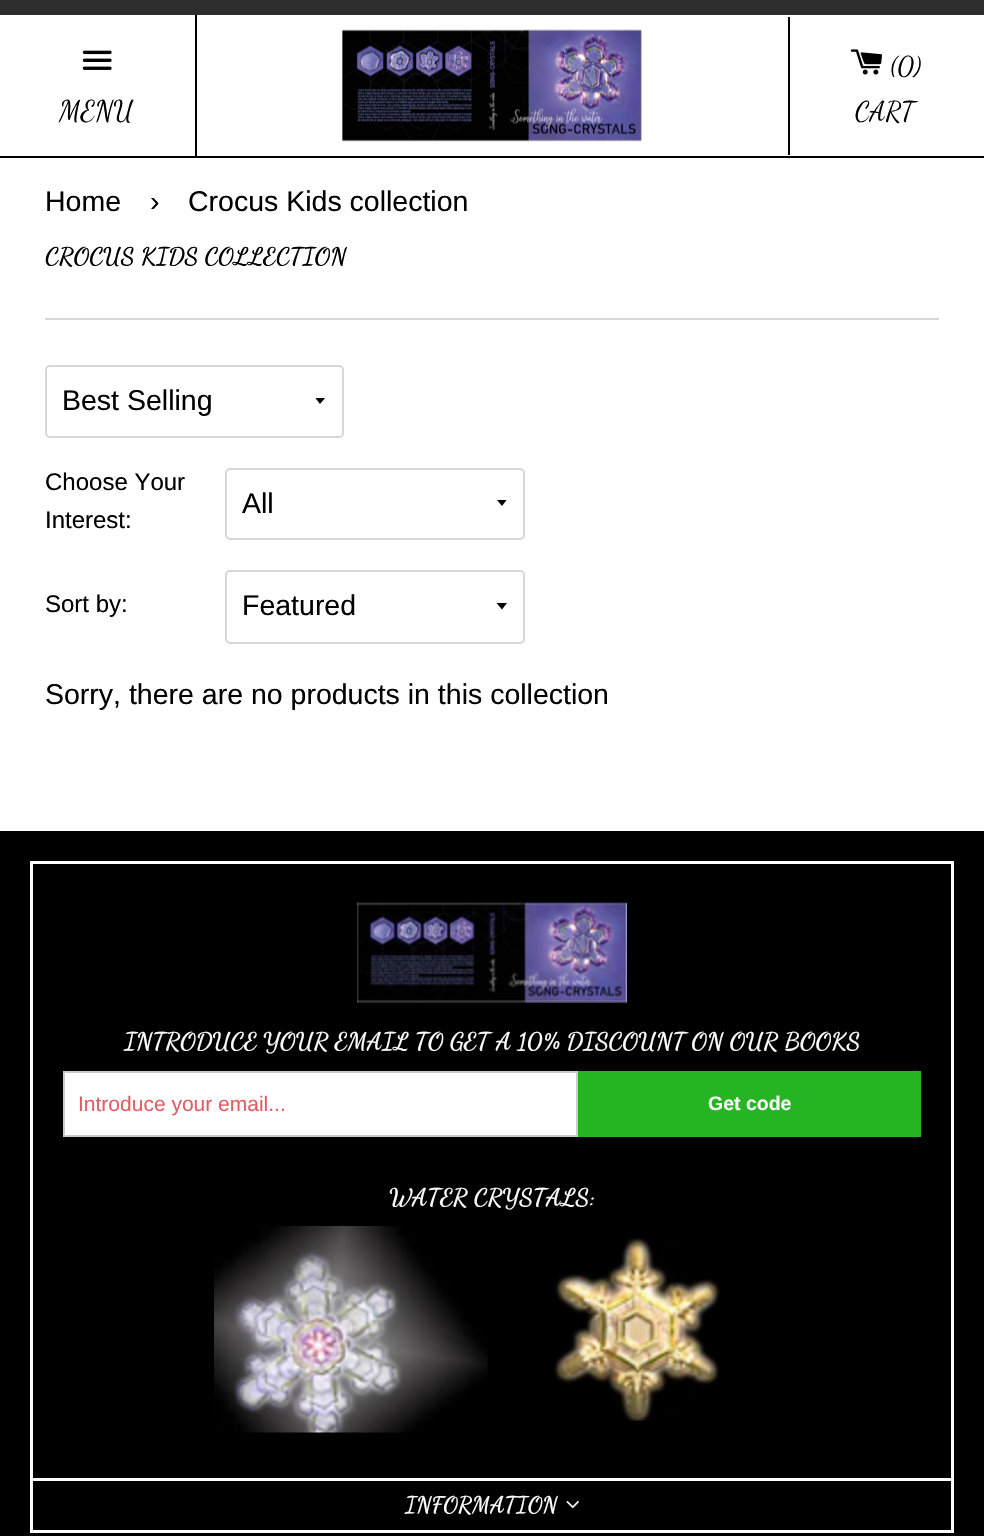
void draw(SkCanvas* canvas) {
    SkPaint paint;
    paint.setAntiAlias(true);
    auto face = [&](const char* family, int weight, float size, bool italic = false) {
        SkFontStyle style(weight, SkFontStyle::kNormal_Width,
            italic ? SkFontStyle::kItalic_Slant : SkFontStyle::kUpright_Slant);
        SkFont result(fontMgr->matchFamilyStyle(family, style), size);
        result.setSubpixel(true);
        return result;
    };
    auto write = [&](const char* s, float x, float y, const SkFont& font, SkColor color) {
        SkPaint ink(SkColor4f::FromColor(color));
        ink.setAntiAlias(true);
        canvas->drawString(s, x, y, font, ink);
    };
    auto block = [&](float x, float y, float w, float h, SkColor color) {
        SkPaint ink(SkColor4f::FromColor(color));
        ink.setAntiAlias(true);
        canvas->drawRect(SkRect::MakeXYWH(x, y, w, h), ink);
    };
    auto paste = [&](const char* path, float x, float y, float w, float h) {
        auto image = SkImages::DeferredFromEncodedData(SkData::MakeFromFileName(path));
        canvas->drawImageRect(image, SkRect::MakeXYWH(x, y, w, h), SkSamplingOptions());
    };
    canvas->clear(SK_ColorWHITE);
    block(0, 0, 984, 15, SkColorSetRGB(45, 45, 45));
    block(0, 156, 984, 2, SK_ColorBLACK);
    block(195, 15, 2, 141, SK_ColorBLACK);
    paste("pic1.png", 82, 50, 30, 20);
    auto kFont1 = face("Dancing Script", 400, 28.5f);
    write("MENU", 59, 120, kFont1, SK_ColorBLACK);
    paste("pic2.png", 342, 29, 300, 113);
    block(788, 17, 2, 138, SK_ColorBLACK);
    paste("pic3.png", 850, 49, 32, 26);
    auto kFont2 = face("Dancing Script", 400, 27);
    write("(0)", 890, 75, kFont2, SK_ColorBLACK);
    write("CART", 855, 120, kFont2, SK_ColorBLACK);
    auto kFont3 = face("Liberation Sans", 400, 28.5f);
    write("Home", 45, 211, kFont3, SK_ColorBLACK);
    write("›", 150, 211, kFont3, SK_ColorBLACK);
    write("Crocus Kids collection", 188, 211, kFont3, SK_ColorBLACK);
    auto kFont4 = face("Dancing Script", 700, 24);
    write("CROCUS KIDS COLLECTION", 45, 264, kFont4, SK_ColorBLACK);
    block(45, 318, 894, 2, SkColorSetRGB(217, 214, 214));
    canvas->save();
    canvas->clipRect(SkRect::MakeXYWH(315, 398, 12, 7));
    paint.setColor(SK_ColorBLACK);
    canvas->drawPath(SkPathBuilder().moveTo(315, 397.5f).lineTo(320, 404).lineTo(325.5f, 397.5f).close().detach(), paint);
    canvas->restore();
    paint.setStyle(SkPaint::kStroke_Style);
    paint.setStrokeWidth(2);
    paint.setColor(SkColorSetRGB(217, 214, 214));
    canvas->drawRoundRect(SkRect::MakeXYWH(46, 366, 297, 71), 4, 4, paint);
    write("Best Selling", 62, 410, kFont3, SK_ColorBLACK);
    auto kFont5 = face("Liberation Sans", 400, 24);
    write("Choose Your", 45, 490, kFont5, SK_ColorBLACK);
    write("Interest:", 45, 528, kFont5, SK_ColorBLACK);
    canvas->save();
    canvas->clipRect(SkRect::MakeXYWH(497, 500, 12, 7));
    paint.setStyle(SkPaint::kFill_Style);
    paint.setColor(SK_ColorBLACK);
    canvas->drawPath(SkPathBuilder().moveTo(496.5f, 499.5f).lineTo(502, 506).lineTo(507, 499.5f).close().detach(), paint);
    canvas->restore();
    paint.setStyle(SkPaint::kStroke_Style);
    paint.setColor(SkColorSetRGB(217, 214, 214));
    canvas->drawRoundRect(SkRect::MakeXYWH(226, 469, 298, 70), 4, 4, paint);
    write("All", 242, 513, kFont3, SK_ColorBLACK);
    write("Sort by:", 45, 612, kFont5, SK_ColorBLACK);
    paint.setStyle(SkPaint::kFill_Style);
    paint.setColor(SK_ColorBLACK);
    canvas->drawPath(SkPathBuilder().moveTo(496.5f, 603).lineTo(502, 609.5f).lineTo(507, 603).close().detach(), paint);
    paint.setStyle(SkPaint::kStroke_Style);
    paint.setColor(SkColorSetRGB(217, 214, 214));
    canvas->drawRoundRect(SkRect::MakeXYWH(226, 571, 298, 72), 4, 4, paint);
    write("Featured", 242, 615, kFont3, SK_ColorBLACK);
    write("Sorry, there are no products in this collection", 45, 704, kFont3, SK_ColorBLACK);
    block(0, 831, 984, 705, SK_ColorBLACK);
    paint.setStrokeWidth(3);
    paint.setColor(SK_ColorWHITE);
    canvas->drawRect(SkRect::MakeXYWH(31.5f, 862.5f, 921, 669), paint);
    paste("pic4.png", 357, 902, 270, 101);
    write("INTRODUCE YOUR EMAIL TO GET A 10% DISCOUNT ON OUR BOOKS", 124, 1049, kFont4, SkColorSetRGB(252, 252, 252));
    paint.setStyle(SkPaint::kFill_Style);
    canvas->drawRect(SkRect::MakeXYWH(64, 1072, 513, 64), paint);
    paint.setStyle(SkPaint::kStroke_Style);
    paint.setStrokeWidth(2);
    paint.setColor(SkColorSetRGB(204, 204, 204));
    canvas->drawRect(SkRect::MakeXYWH(64, 1072, 513, 64), paint);
    auto kFont6 = face("Liberation Sans", 400, 21);
    write("Introduce your email...", 78, 1111, kFont6, SkColorSetRGB(226, 92, 99));
    block(578, 1071, 343, 66, SkColorSetRGB(38, 181, 34));
    auto kFont7 = face("Liberation Sans", 700, 19.5f);
    write("Get code", 708, 1110, kFont7, SkColorSetRGB(252, 252, 252));
    write("WATER CRYSTALS:", 389, 1205, kFont4, SkColorSetRGB(252, 252, 252));
    paste("pic5.png", 214, 1226, 274, 207);
    paste("pic6.png", 553, 1238, 167, 183);
    block(33, 1478, 918, 3, SK_ColorWHITE);
    auto kFont8 = face("Dancing Script", 700, 22.5f);
    write("INFORMATION", 405, 1512, kFont8, SkColorSetRGB(252, 252, 252));
    paste("pic7.png", 566, 1501, 13, 8);
}
